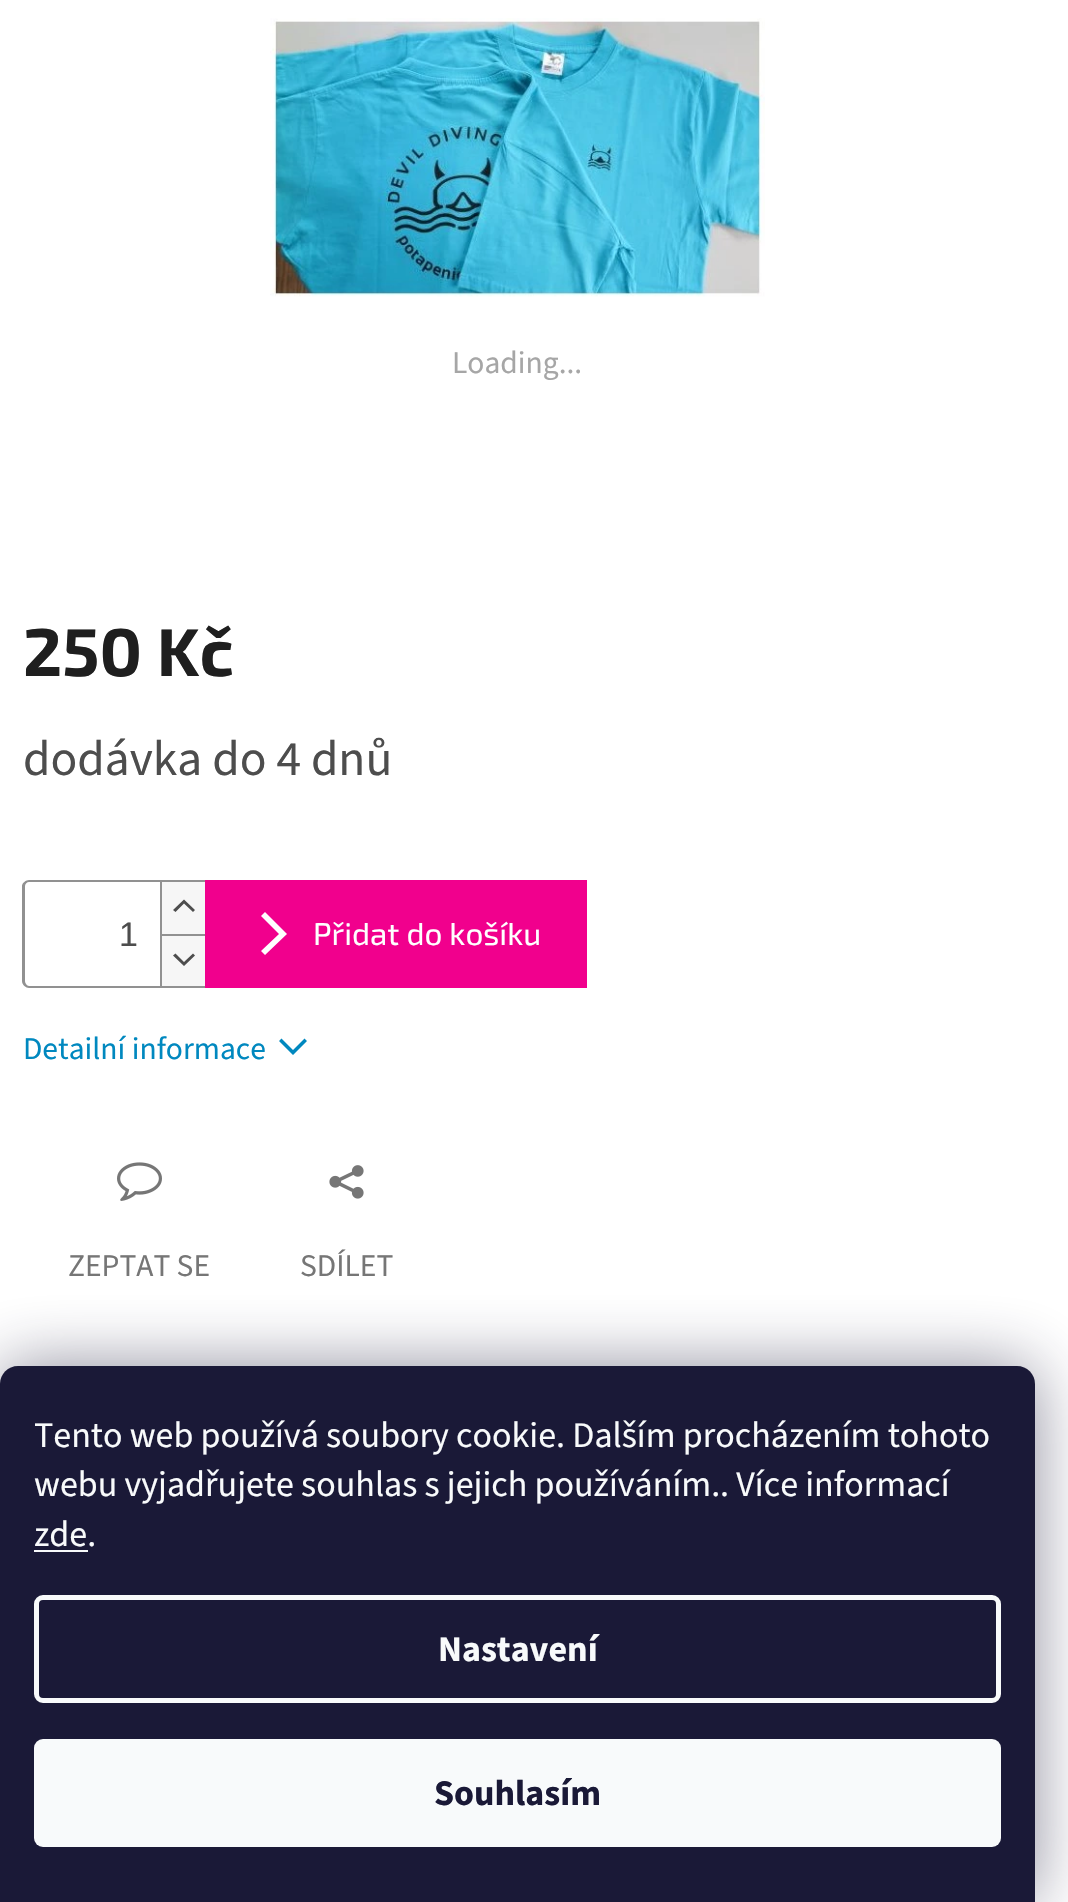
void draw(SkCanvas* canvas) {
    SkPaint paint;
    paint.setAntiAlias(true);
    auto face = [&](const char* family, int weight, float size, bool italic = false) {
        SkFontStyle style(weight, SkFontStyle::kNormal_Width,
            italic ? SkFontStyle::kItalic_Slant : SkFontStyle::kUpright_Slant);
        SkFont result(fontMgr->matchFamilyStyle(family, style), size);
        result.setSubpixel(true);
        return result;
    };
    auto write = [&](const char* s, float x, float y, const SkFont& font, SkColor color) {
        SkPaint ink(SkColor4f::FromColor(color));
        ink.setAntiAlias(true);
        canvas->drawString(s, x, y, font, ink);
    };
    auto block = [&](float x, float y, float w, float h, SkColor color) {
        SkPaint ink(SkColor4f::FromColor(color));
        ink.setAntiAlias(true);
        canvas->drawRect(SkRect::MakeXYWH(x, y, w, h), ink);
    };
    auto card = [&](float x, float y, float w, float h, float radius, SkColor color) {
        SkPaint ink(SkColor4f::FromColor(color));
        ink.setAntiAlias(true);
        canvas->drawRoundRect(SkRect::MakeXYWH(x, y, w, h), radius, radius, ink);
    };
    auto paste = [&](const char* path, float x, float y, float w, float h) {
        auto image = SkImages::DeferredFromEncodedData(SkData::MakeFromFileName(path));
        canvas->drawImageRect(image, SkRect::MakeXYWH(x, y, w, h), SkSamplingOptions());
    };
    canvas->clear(SK_ColorWHITE);
    paste("pic1.png", 270, 18, 495, 279);
    auto kFont1 = face("Source Sans 3", 400, 31.5f);
    write("Loading...", 452, 373, kFont1, SkColorSetRGB(166, 166, 166));
    auto kFont2 = face("Exo 2", 700, 67.5f);
    write("250 Kč", 23, 676, kFont2, SkColorSetRGB(31, 31, 31));
    auto kFont3 = face("Source Sans 3", 400, 49.5f);
    write("dodávka do 4 dnů", 23, 775, kFont3, SkColorSetRGB(77, 77, 77));
    paint.setColor(SkColorSetRGB(145, 145, 145));
    canvas->drawPath(SkPathBuilder(SkPathFillType::kEvenOdd).moveTo(29, 880).lineTo(205, 880).lineTo(205, 988).lineTo(29, 988).cubicTo(26, 988, 22, 985, 22, 981).lineTo(22, 886).cubicTo(22, 883, 26, 880, 29, 880).close().moveTo(29, 882).lineTo(205, 882).lineTo(205, 986).lineTo(29, 986).cubicTo(27, 986, 25, 983, 25, 981).lineTo(25, 886).cubicTo(25, 884, 27, 882, 29, 882).close().detach(), paint);
    auto kFont4 = face("Liberation Sans", 400, 34);
    write("1", 119, 946, kFont4, SkColorSetRGB(77, 77, 77));
    block(162, 882, 43, 52, SkColorSetRGB(246, 246, 246));
    block(160, 882, 2, 52, SkColorSetRGB(145, 145, 145));
    paint.setColor(SkColorSetRGB(77, 77, 77));
    canvas->drawPath(SkPathBuilder().moveTo(173, 910).lineTo(175.5f, 912).lineTo(184, 903.5f).lineTo(193, 912).lineTo(195, 910).lineTo(184, 899.5f).close().detach(), paint);
    block(162, 936, 43, 50, SkColorSetRGB(246, 246, 246));
    block(160, 934, 45, 2, SkColorSetRGB(145, 145, 145));
    block(160, 934, 2, 52, SkColorSetRGB(145, 145, 145));
    canvas->drawPath(SkPathBuilder().moveTo(173, 955.5f).lineTo(175.5f, 953.5f).lineTo(184, 962).lineTo(193, 953.5f).lineTo(195, 955.5f).lineTo(184, 966).close().detach(), paint);
    block(205, 880, 382, 108, SkColorSetRGB(241, 0, 141));
    paint.setColor(SK_ColorWHITE);
    canvas->drawPath(SkPathBuilder().moveTo(265, 955).lineTo(261, 951).lineTo(279, 934).lineTo(261, 916).lineTo(265, 912).lineTo(287, 934).close().detach(), paint);
    auto kFont5 = face("Exo 2", 400, 31.5f);
    write("Přidat do košíku", 313, 945, kFont5, SK_ColorWHITE);
    write("Detailní informace", 23, 1059, kFont1, SkColorSetRGB(0, 136, 191));
    paint.setColor(SkColorSetRGB(0, 136, 191));
    canvas->drawPath(SkPathBuilder().moveTo(279, 1041).lineTo(281.5f, 1038.5f).lineTo(293, 1050).lineTo(304.5f, 1038.5f).lineTo(307, 1041).lineTo(293, 1055).close().detach(), paint);
    paste("pic2.png", 117, 1162, 45, 39);
    write("ZEPTAT SE", 68, 1276, kFont1, SkColorSetRGB(118, 118, 118));
    paste("pic3.png", 329, 1165, 35, 34);
    write("SDÍLET", 300, 1276, kFont1, SkColorSetRGB(118, 118, 118));
    paint.setColor(SkColorSetARGB(128, 27, 25, 57));
    paint.setMaskFilter(SkMaskFilter::MakeBlur(kNormal_SkBlurStyle, 34));
    canvas->drawRoundRect(SkRect::MakeXYWH(0, 1366, 1035, 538), 18, 18, paint);
    paint.setMaskFilter(nullptr);
    paint.setColor(SkColorSetRGB(26, 25, 55));
    canvas->drawPath(SkPathBuilder().moveTo(18, 1366).lineTo(1017, 1366).cubicTo(1027, 1366, 1035, 1374, 1035, 1384).lineTo(1035, 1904).lineTo(0, 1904).lineTo(0, 1384).cubicTo(0, 1374, 8, 1366, 18, 1366).close().detach(), paint);
    auto kFont6 = face("Source Sans 3", 400, 36);
    write("Tento web používá soubory cookie. Dalším procházením tohoto", 34, 1447, kFont6, SkColorSetRGB(248, 250, 251));
    write("webu vyjadřujete souhlas s jejich používáním.. Více informací", 34, 1496, kFont6, SkColorSetRGB(248, 250, 251));
    write("zde.", 34, 1546, kFont6, SkColorSetRGB(248, 250, 251));
    block(34, 1550, 54, 2, SkColorSetRGB(248, 250, 251));
    paint.setStyle(SkPaint::kStroke_Style);
    paint.setStrokeWidth(5);
    paint.setColor(SkColorSetRGB(248, 250, 251));
    canvas->drawRoundRect(SkRect::MakeXYWH(36.5f, 1597.5f, 962, 103), 6.5f, 6.5f, paint);
    auto kFont7 = face("Source Sans 3", 700, 36);
    write("Nastavení", 438, 1661, kFont7, SkColorSetRGB(248, 250, 251));
    card(34, 1739, 967, 108, 9, SkColorSetRGB(248, 250, 251));
    write("Souhlasím", 434, 1805, kFont7, SkColorSetRGB(26, 25, 55));
}
